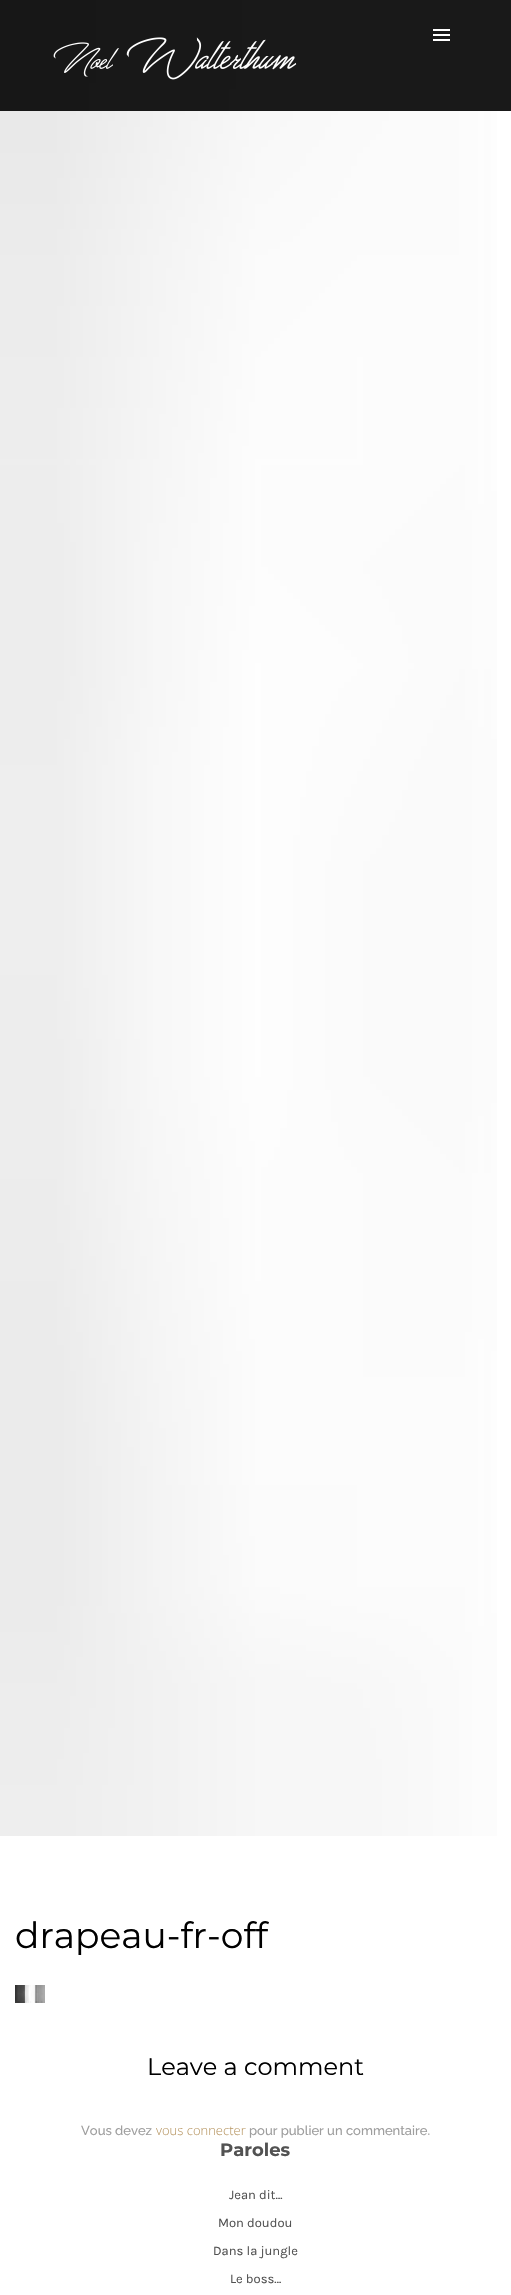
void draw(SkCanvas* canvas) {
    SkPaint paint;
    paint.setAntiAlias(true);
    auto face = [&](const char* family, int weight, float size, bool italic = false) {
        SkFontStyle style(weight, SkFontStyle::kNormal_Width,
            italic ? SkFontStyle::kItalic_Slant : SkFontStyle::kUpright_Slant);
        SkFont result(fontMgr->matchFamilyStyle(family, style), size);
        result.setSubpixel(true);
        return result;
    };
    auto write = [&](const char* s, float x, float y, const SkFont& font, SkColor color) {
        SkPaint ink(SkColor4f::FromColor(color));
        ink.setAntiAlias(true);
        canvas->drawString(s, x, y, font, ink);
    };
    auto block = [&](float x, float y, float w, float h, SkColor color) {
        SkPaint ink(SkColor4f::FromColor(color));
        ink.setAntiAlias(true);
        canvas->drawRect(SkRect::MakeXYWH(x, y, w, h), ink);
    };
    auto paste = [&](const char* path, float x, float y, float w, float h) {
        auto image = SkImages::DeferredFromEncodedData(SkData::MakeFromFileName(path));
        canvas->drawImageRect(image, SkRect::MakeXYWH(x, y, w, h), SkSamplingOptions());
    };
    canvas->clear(SK_ColorWHITE);
    paste("pic1.png", 0, 0, 497, 1836);
    block(0, 0, 511, 111, SkColorSetARGB(230, 0, 0, 0));
    block(433, 29, 17, 2, SK_ColorWHITE);
    block(433, 34, 17, 2, SK_ColorWHITE);
    block(433, 39, 17, 2, SK_ColorWHITE);
    paste("pic2.png", 53, 37, 244, 43);
    auto kFont1 = face("Montserrat", 100, 36);
    write("drapeau-fr-off", 15, 1948, kFont1, SK_ColorBLACK);
    paste("pic3.png", 15, 1985, 30, 18);
    auto kFont2 = face("Montserrat", 100, 24);
    write("Leave a comment", 147, 2075, kFont2, SK_ColorBLACK);
    auto kFont3 = face("Raleway", 500, 13);
    write("Vous devez", 81, 2135, kFont3, SkColorSetRGB(158, 158, 158));
    auto kFont4 = face("Open Sans", 300, 13);
    write("vous connecter", 156, 2135, kFont4, SkColorSetRGB(187, 155, 105));
    write("pour publier un commentaire.", 249, 2135, kFont3, SkColorSetRGB(158, 158, 158));
    auto kFont5 = face("Montserrat", 700, 18);
    write("Paroles", 220, 2156, kFont5, SkColorSetRGB(82, 82, 82));
    auto kFont6 = face("Karla", 400, 13);
    write("Jean dit…", 229, 2199, kFont6, SkColorSetRGB(82, 82, 82));
    write("Mon doudou", 218, 2227, kFont6, SkColorSetRGB(82, 82, 82));
    write("Dans la jungle", 213, 2255, kFont6, SkColorSetRGB(82, 82, 82));
    write("Le boss…", 230, 2283, kFont6, SkColorSetRGB(82, 82, 82));
}
